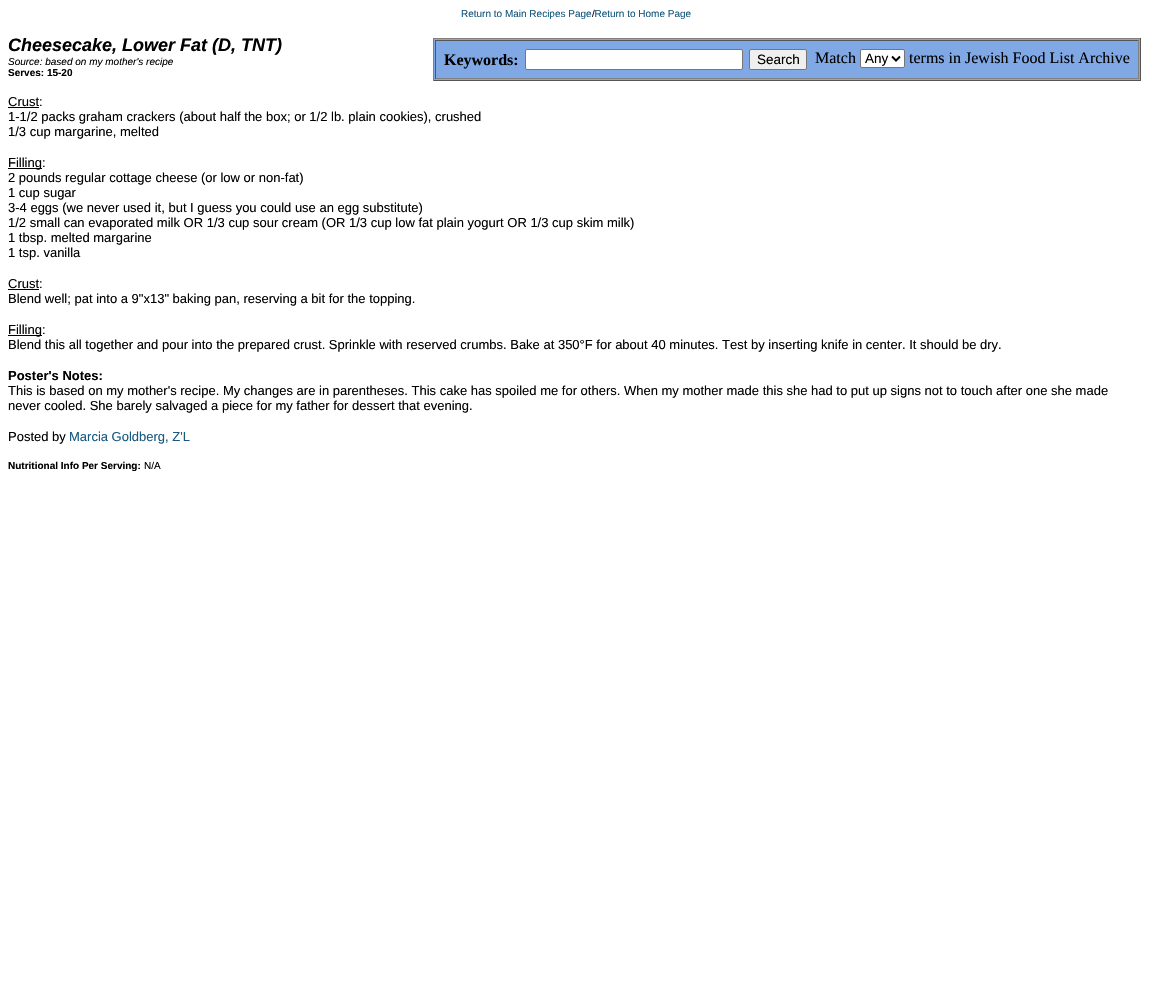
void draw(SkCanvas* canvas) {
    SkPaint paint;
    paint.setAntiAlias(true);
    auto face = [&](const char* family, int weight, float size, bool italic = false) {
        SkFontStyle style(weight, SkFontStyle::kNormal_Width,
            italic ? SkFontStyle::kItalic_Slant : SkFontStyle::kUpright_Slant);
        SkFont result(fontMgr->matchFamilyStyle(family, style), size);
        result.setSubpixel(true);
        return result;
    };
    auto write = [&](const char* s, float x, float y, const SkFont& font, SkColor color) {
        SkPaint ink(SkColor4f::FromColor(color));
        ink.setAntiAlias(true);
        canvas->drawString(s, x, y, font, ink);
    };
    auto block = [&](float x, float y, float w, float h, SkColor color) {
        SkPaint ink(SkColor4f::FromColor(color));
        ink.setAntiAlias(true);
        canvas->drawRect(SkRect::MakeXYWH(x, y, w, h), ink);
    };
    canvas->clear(SK_ColorWHITE);
    auto kFont1 = face("Liberation Sans", 400, 10);
    write("Return to Main Recipes Page Return to Home Page", 461, 17, kFont1, SkColorSetRGB(23, 89, 127));
    write("/", 592, 17, kFont1, SK_ColorBLACK);
    auto kFont2 = face("Liberation Sans", 700, 18, true);
    write("Cheesecake, Lower Fat (D, TNT)", 8, 51, kFont2, SK_ColorBLACK);
    auto kFont3 = face("Liberation Sans", 400, 10, true);
    write("Source: based on my mother's recipe", 8, 65, kFont3, SK_ColorBLACK);
    block(434, 39, 706, 41, SkColorSetRGB(128, 168, 229));
    block(433, 38, 708, 1, SkColorSetRGB(128, 128, 128));
    block(1140, 38, 1, 43, SkColorSetRGB(85, 85, 85));
    block(433, 80, 708, 1, SkColorSetRGB(85, 85, 85));
    block(433, 38, 1, 43, SkColorSetRGB(128, 128, 128));
    block(435, 40, 704, 1, SkColorSetRGB(85, 85, 85));
    block(1138, 40, 1, 39, SkColorSetRGB(128, 128, 128));
    block(435, 78, 704, 1, SkColorSetRGB(128, 128, 128));
    block(435, 40, 1, 39, SkColorSetRGB(85, 85, 85));
    auto kFont4 = face("Liberation Serif", 700, 16);
    write("Keywords:", 444, 65, kFont4, SK_ColorBLACK);
    paint.setColor(SK_ColorWHITE);
    canvas->drawRoundRect(SkRect::MakeXYWH(525.5f, 49.5f, 217, 20), 1.5f, 1.5f, paint);
    paint.setStyle(SkPaint::kStroke_Style);
    paint.setStrokeWidth(1);
    paint.setColor(SkColorSetRGB(118, 118, 118));
    canvas->drawRoundRect(SkRect::MakeXYWH(525.5f, 49.5f, 217, 20), 1.5f, 1.5f, paint);
    paint.setStyle(SkPaint::kFill_Style);
    paint.setColor(SkColorSetRGB(239, 239, 239));
    canvas->drawRoundRect(SkRect::MakeXYWH(749.5f, 49.5f, 57, 20), 1.5f, 1.5f, paint);
    paint.setStyle(SkPaint::kStroke_Style);
    paint.setColor(SkColorSetRGB(118, 118, 118));
    canvas->drawRoundRect(SkRect::MakeXYWH(749.5f, 49.5f, 57, 20), 1.5f, 1.5f, paint);
    auto kFont5 = face("Liberation Sans", 400, 13.5f);
    write("Search", 757, 64, kFont5, SK_ColorBLACK);
    auto kFont6 = face("Liberation Serif", 400, 16);
    write("Match", 815, 63, kFont6, SK_ColorBLACK);
    paint.setStyle(SkPaint::kFill_Style);
    paint.setColor(SK_ColorWHITE);
    canvas->drawRoundRect(SkRect::MakeXYWH(860.5f, 49.5f, 44, 18), 1.5f, 1.5f, paint);
    paint.setStyle(SkPaint::kStroke_Style);
    paint.setColor(SkColorSetRGB(118, 118, 118));
    canvas->drawRoundRect(SkRect::MakeXYWH(860.5f, 49.5f, 44, 18), 1.5f, 1.5f, paint);
    paint.setStrokeWidth(2);
    paint.setColor(SK_ColorBLACK);
    canvas->drawPath(SkPathBuilder().moveTo(892, 56.5f).lineTo(896, 60.5f).lineTo(900, 56.5f).detach(), paint);
    write("Any", 865, 63, kFont5, SK_ColorBLACK);
    write("terms in Jewish Food List Archive", 909, 63, kFont6, SK_ColorBLACK);
    auto kFont7 = face("Liberation Sans", 700, 10);
    write("Serves: 15-20", 8, 76, kFont7, SK_ColorBLACK);
    auto kFont8 = face("Liberation Sans", 400, 13);
    write("Crust:", 8, 106, kFont8, SK_ColorBLACK);
    block(8, 107, 31, 1, SK_ColorBLACK);
    write("1-1/2 packs graham crackers (about half the box; or 1/2 lb. plain cookies), crushed", 8, 121, kFont8, SK_ColorBLACK);
    write("1/3 cup margarine, melted", 8, 136, kFont8, SK_ColorBLACK);
    block(8, 168, 34, 1, SK_ColorBLACK);
    write("Filling:", 8, 167, kFont8, SK_ColorBLACK);
    write("2 pounds regular cottage cheese (or low or non-fat)", 8, 182, kFont8, SK_ColorBLACK);
    write("1 cup sugar", 8, 197, kFont8, SK_ColorBLACK);
    write("3-4 eggs (we never used it, but I guess you could use an egg substitute)", 8, 212, kFont8, SK_ColorBLACK);
    write("1/2 small can evaporated milk OR 1/3 cup sour cream (OR 1/3 cup low fat plain yogurt OR 1/3 cup skim milk)", 8, 227, kFont8, SK_ColorBLACK);
    write("1 tbsp. melted margarine", 8, 242, kFont8, SK_ColorBLACK);
    write("1 tsp. vanilla", 8, 257, kFont8, SK_ColorBLACK);
    write("Crust:", 8, 288, kFont8, SK_ColorBLACK);
    block(8, 289, 31, 1, SK_ColorBLACK);
    write("Blend well; pat into a 9\"x13\" baking pan, reserving a bit for the topping.", 8, 303, kFont8, SK_ColorBLACK);
    block(8, 335, 34, 1, SK_ColorBLACK);
    write("Filling:", 8, 334, kFont8, SK_ColorBLACK);
    write("Blend this all together and pour into the prepared crust. Sprinkle with reserved crumbs. Bake at 350°F for about 40 minutes. Test by inserting knife in center. It should be dry.", 8, 349, kFont8, SK_ColorBLACK);
    auto kFont9 = face("Liberation Sans", 700, 13);
    write("Poster's Notes:", 8, 380, kFont9, SK_ColorBLACK);
    write("This is based on my mother's recipe. My changes are in parentheses. This cake has spoiled me for others. When my mother made this she had to put up signs not to touch after one she made", 8, 395, kFont8, SK_ColorBLACK);
    write("never cooled. She barely salvaged a piece for my father for dessert that evening.", 8, 410, kFont8, SK_ColorBLACK);
    write("Posted by", 8, 441, kFont8, SK_ColorBLACK);
    write("Marcia Goldberg, Z'L", 69, 441, kFont8, SkColorSetRGB(23, 89, 127));
    write("Nutritional Info Per Serving:", 8, 469, kFont7, SK_ColorBLACK);
    write("N/A", 144, 469, kFont1, SK_ColorBLACK);
}
